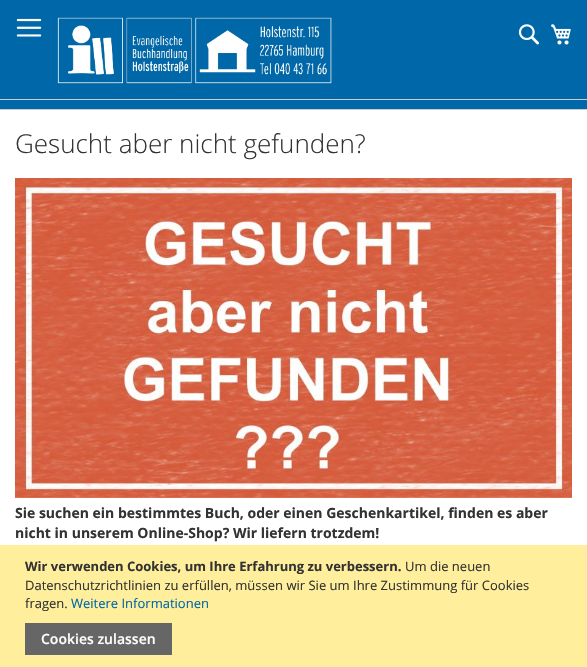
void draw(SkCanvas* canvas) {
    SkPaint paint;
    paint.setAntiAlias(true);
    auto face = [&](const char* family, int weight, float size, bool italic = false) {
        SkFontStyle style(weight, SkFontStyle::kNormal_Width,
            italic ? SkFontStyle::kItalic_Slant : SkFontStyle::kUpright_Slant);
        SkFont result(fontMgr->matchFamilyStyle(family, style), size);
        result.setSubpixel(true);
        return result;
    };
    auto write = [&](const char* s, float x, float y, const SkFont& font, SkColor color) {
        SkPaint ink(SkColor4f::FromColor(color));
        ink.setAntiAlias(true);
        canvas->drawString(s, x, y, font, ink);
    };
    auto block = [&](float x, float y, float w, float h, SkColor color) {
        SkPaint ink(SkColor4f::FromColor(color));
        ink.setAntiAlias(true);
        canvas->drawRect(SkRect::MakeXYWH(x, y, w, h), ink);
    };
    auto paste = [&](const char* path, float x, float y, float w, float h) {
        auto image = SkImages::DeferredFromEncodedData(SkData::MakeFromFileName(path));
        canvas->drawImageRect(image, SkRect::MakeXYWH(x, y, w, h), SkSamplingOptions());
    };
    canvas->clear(SK_ColorWHITE);
    block(0, 0, 587, 109, SkColorSetRGB(0, 103, 169));
    block(0, 109, 587, 1, SkColorSetRGB(204, 204, 204));
    paste("pic1.png", 16, 18, 26, 19);
    paste("pic2.png", 57, 17, 275, 67);
    paste("pic3.png", 518, 24, 22, 21);
    block(0, 99, 587, 1, SkColorSetRGB(204, 204, 204));
    paste("pic4.png", 551, 24, 20, 21);
    auto kFont1 = face("Open Sans", 300, 26);
    write("Gesucht aber nicht gefunden?", 15, 153, kFont1, SkColorSetRGB(51, 51, 51));
    paste("pic5.png", 15, 178, 557, 320);
    auto kFont2 = face("Open Sans", 700, 14);
    write("Sie suchen ein bestimmtes Buch, oder einen Geschenkartikel, finden es aber", 15, 518, kFont2, SkColorSetRGB(51, 51, 51));
    write("nicht in unserem Online-Shop? Wir liefern trotzdem!", 15, 538, kFont2, SkColorSetRGB(51, 51, 51));
    block(0, 545, 587, 122, SkColorSetRGB(255, 238, 156));
    auto kFont3 = face("Open Sans", 700, 13);
    write("Wir verwenden Cookies, um Ihre Erfahrung zu verbessern.", 25, 571, kFont3, SkColorSetRGB(51, 51, 51));
    auto kFont4 = face("Open Sans", 400, 13);
    write("Um die neuen", 405, 571, kFont4, SkColorSetRGB(51, 51, 51));
    write("Datenschutzrichtlinien zu erfüllen, müssen wir Sie um Ihre Zustimmung für Cookies", 25, 590, kFont4, SkColorSetRGB(51, 51, 51));
    write("fragen.", 25, 608, kFont4, SkColorSetRGB(51, 51, 51));
    write("Weitere Informationen", 71, 608, kFont4, SkColorSetRGB(0, 103, 169));
    block(25, 623, 147, 32, SkColorSetRGB(102, 102, 102));
    auto kFont5 = face("Open Sans", 600, 14);
    write("Cookies zulassen", 41, 644, kFont5, SK_ColorWHITE);
}
